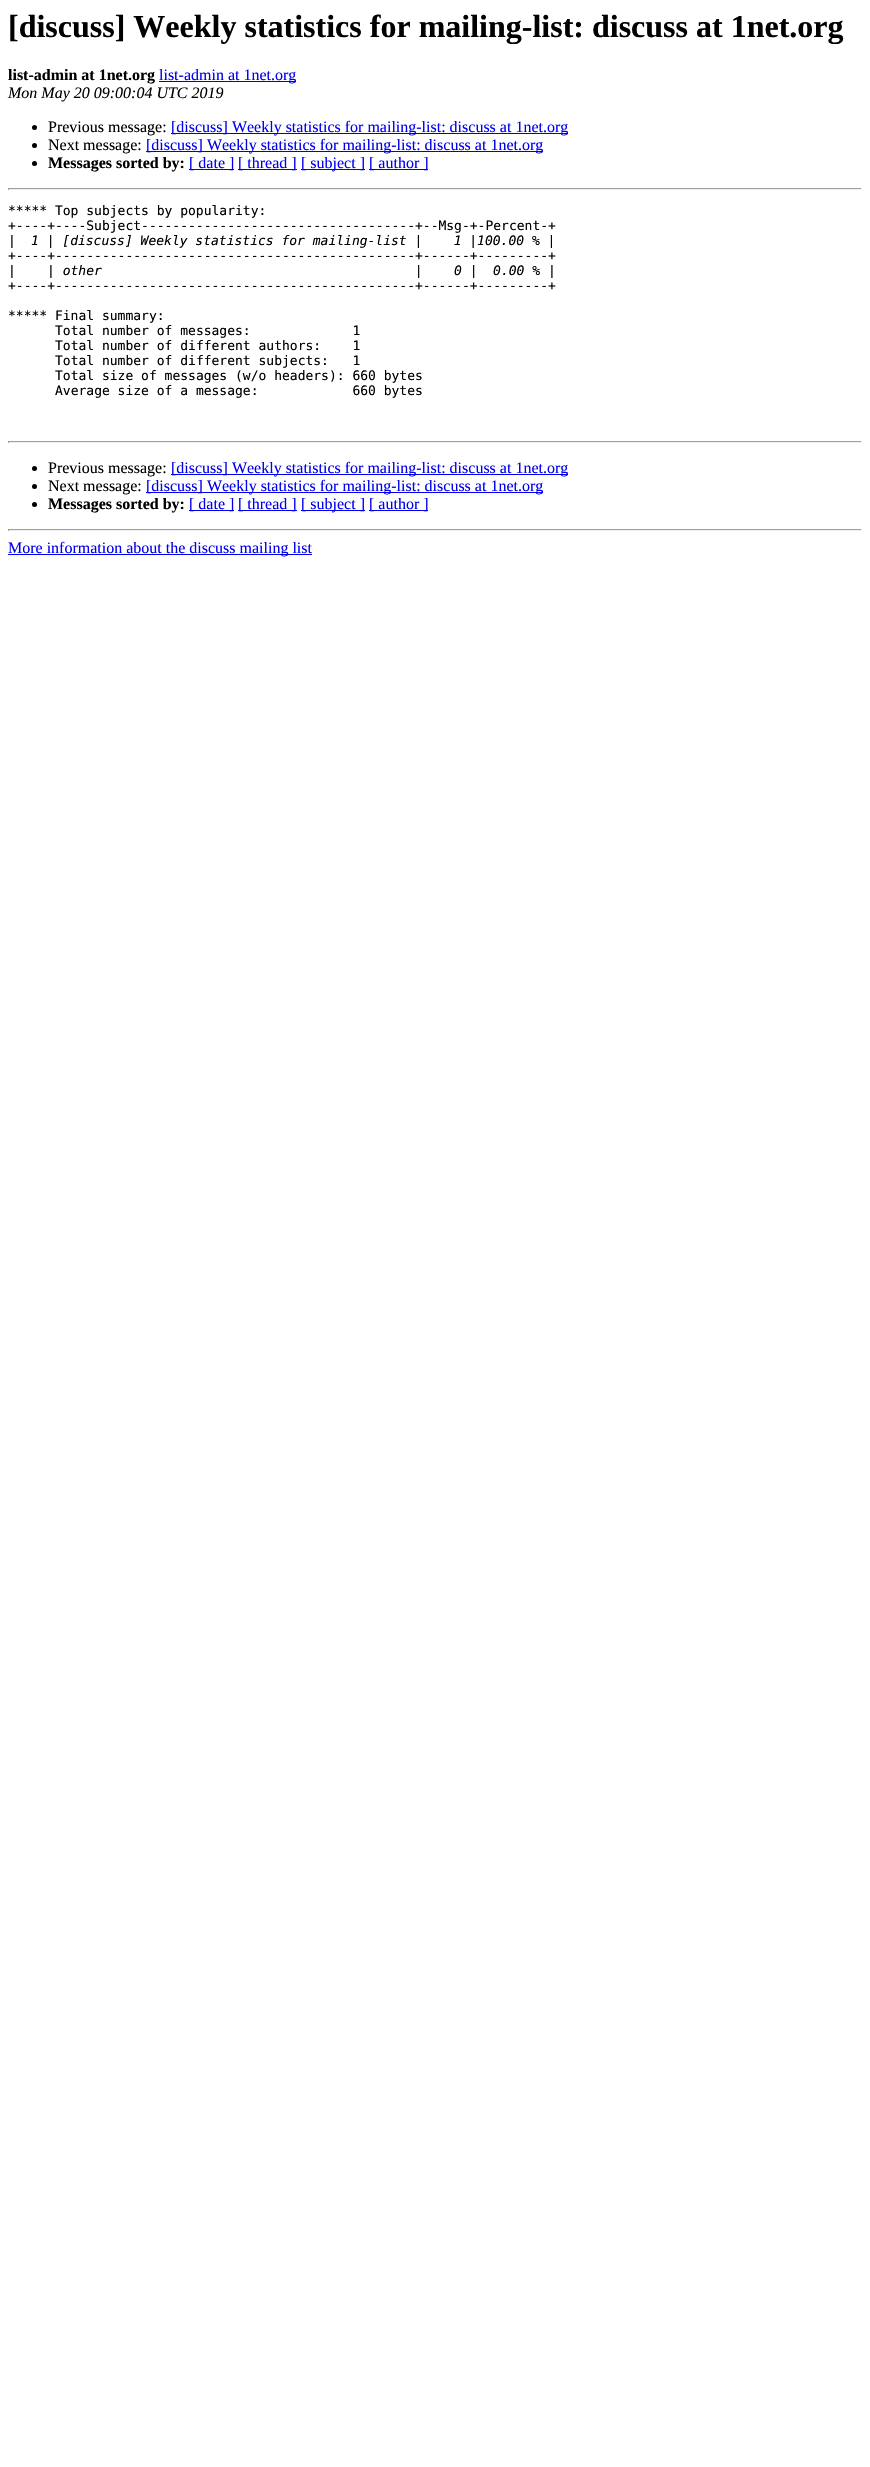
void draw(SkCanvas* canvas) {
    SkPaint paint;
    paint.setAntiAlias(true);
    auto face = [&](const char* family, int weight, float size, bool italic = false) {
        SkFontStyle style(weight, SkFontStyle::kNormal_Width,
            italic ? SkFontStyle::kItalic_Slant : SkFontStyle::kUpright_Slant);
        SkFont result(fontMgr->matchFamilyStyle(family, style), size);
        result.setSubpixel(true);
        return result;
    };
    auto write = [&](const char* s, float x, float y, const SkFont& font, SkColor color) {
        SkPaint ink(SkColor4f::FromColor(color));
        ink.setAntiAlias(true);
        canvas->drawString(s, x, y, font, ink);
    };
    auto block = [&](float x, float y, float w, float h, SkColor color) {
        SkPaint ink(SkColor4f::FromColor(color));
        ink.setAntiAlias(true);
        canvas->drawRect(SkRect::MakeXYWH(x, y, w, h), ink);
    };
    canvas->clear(SK_ColorWHITE);
    auto kFont1 = face("Liberation Serif", 700, 32);
    write("[discuss] Weekly statistics for mailing-list: discuss at 1net.org", 8, 37, kFont1, SK_ColorBLACK);
    auto kFont2 = face("Liberation Serif", 700, 16);
    write("list-admin at 1net.org", 8, 80, kFont2, SK_ColorBLACK);
    block(159, 81, 137, 1, SkColorSetRGB(0, 0, 238));
    auto kFont3 = face("Liberation Serif", 400, 16);
    write("list-admin at 1net.org", 159, 80, kFont3, SkColorSetRGB(0, 0, 238));
    auto kFont4 = face("Liberation Serif", 400, 16, true);
    write("Mon May 20 09:00:04 UTC 2019", 8, 98, kFont4, SK_ColorBLACK);
    paint.setColor(SK_ColorBLACK);
    canvas->drawCircle(34.5f, 127.5f, 2.5f, paint);
    write("Previous message:", 48, 132, kFont3, SK_ColorBLACK);
    block(171, 133, 397, 1, SkColorSetRGB(0, 0, 238));
    write("[discuss] Weekly statistics for mailing-list: discuss at 1net.org", 171, 132, kFont3, SkColorSetRGB(0, 0, 238));
    canvas->drawCircle(34.5f, 145.5f, 2.5f, paint);
    write("Next message:", 48, 150, kFont3, SK_ColorBLACK);
    block(146, 151, 397, 1, SkColorSetRGB(0, 0, 238));
    write("[discuss] Weekly statistics for mailing-list: discuss at 1net.org", 146, 150, kFont3, SkColorSetRGB(0, 0, 238));
    canvas->drawCircle(34.5f, 163.5f, 2.5f, paint);
    write("Messages sorted by:", 48, 168, kFont2, SK_ColorBLACK);
    block(189, 169, 45, 1, SkColorSetRGB(0, 0, 238));
    write("[ date ]", 189, 168, kFont3, SkColorSetRGB(0, 0, 238));
    block(238, 169, 59, 1, SkColorSetRGB(0, 0, 238));
    write("[ thread ]", 238, 168, kFont3, SkColorSetRGB(0, 0, 238));
    block(301, 169, 64, 1, SkColorSetRGB(0, 0, 238));
    write("[ subject ]", 301, 168, kFont3, SkColorSetRGB(0, 0, 238));
    block(369, 169, 59, 1, SkColorSetRGB(0, 0, 238));
    write("[ author ]", 369, 168, kFont3, SkColorSetRGB(0, 0, 238));
    block(8, 188, 854, 1, SkColorSetRGB(159, 159, 159));
    block(861, 188, 1, 2, SkColorSetRGB(238, 238, 238));
    block(8, 189, 854, 1, SkColorSetRGB(238, 238, 238));
    block(8, 188, 1, 2, SkColorSetRGB(159, 159, 159));
    auto kFont5 = face("DejaVu Sans Mono", 400, 13);
    write("***** Top subjects by popularity:", 8, 215, kFont5, SK_ColorBLACK);
    write("+----+----Subject-----------------------------------+--Msg-+-Percent-+", 8, 230, kFont5, SK_ColorBLACK);
    write("|", 8, 245, kFont5, SK_ColorBLACK);
    auto kFont6 = face("DejaVu Sans Mono", 400, 13, true);
    write("1 | [discuss] Weekly statistics for mailing-list |    1 |100.00 % |", 31, 245, kFont6, SK_ColorBLACK);
    write("+----+----------------------------------------------+------+---------+", 8, 260, kFont5, SK_ColorBLACK);
    write("|", 8, 275, kFont5, SK_ColorBLACK);
    write("| other                                        |    0 |  0.00 % |", 47, 275, kFont6, SK_ColorBLACK);
    write("+----+----------------------------------------------+------+---------+", 8, 290, kFont5, SK_ColorBLACK);
    write("***** Final summary:", 8, 320, kFont5, SK_ColorBLACK);
    write("Total number of messages:             1", 55, 335, kFont5, SK_ColorBLACK);
    write("Total number of different authors:    1", 55, 350, kFont5, SK_ColorBLACK);
    write("Total number of different subjects:   1", 55, 365, kFont5, SK_ColorBLACK);
    write("Total size of messages (w/o headers): 660 bytes", 55, 380, kFont5, SK_ColorBLACK);
    write("Average size of a message:            660 bytes", 55, 395, kFont5, SK_ColorBLACK);
    block(8, 441, 854, 1, SkColorSetRGB(159, 159, 159));
    block(861, 441, 1, 2, SkColorSetRGB(238, 238, 238));
    block(8, 442, 854, 1, SkColorSetRGB(238, 238, 238));
    block(8, 441, 1, 2, SkColorSetRGB(159, 159, 159));
    canvas->drawCircle(34.5f, 468.5f, 2.5f, paint);
    write("Previous message:", 48, 473, kFont3, SK_ColorBLACK);
    block(171, 474, 397, 1, SkColorSetRGB(0, 0, 238));
    write("[discuss] Weekly statistics for mailing-list: discuss at 1net.org", 171, 473, kFont3, SkColorSetRGB(0, 0, 238));
    canvas->drawCircle(34.5f, 486.5f, 2.5f, paint);
    write("Next message:", 48, 491, kFont3, SK_ColorBLACK);
    block(146, 492, 397, 1, SkColorSetRGB(0, 0, 238));
    write("[discuss] Weekly statistics for mailing-list: discuss at 1net.org", 146, 491, kFont3, SkColorSetRGB(0, 0, 238));
    canvas->drawCircle(34.5f, 504.5f, 2.5f, paint);
    write("Messages sorted by:", 48, 509, kFont2, SK_ColorBLACK);
    block(189, 510, 45, 1, SkColorSetRGB(0, 0, 238));
    write("[ date ]", 189, 509, kFont3, SkColorSetRGB(0, 0, 238));
    block(238, 510, 59, 1, SkColorSetRGB(0, 0, 238));
    write("[ thread ]", 238, 509, kFont3, SkColorSetRGB(0, 0, 238));
    block(301, 510, 64, 1, SkColorSetRGB(0, 0, 238));
    write("[ subject ]", 301, 509, kFont3, SkColorSetRGB(0, 0, 238));
    block(369, 510, 59, 1, SkColorSetRGB(0, 0, 238));
    write("[ author ]", 369, 509, kFont3, SkColorSetRGB(0, 0, 238));
    block(8, 529, 854, 1, SkColorSetRGB(159, 159, 159));
    block(861, 529, 1, 2, SkColorSetRGB(238, 238, 238));
    block(8, 530, 854, 1, SkColorSetRGB(238, 238, 238));
    block(8, 529, 1, 2, SkColorSetRGB(159, 159, 159));
    block(8, 554, 304, 1, SkColorSetRGB(0, 0, 238));
    write("More information about the discuss mailing list", 8, 553, kFont3, SkColorSetRGB(0, 0, 238));
}
